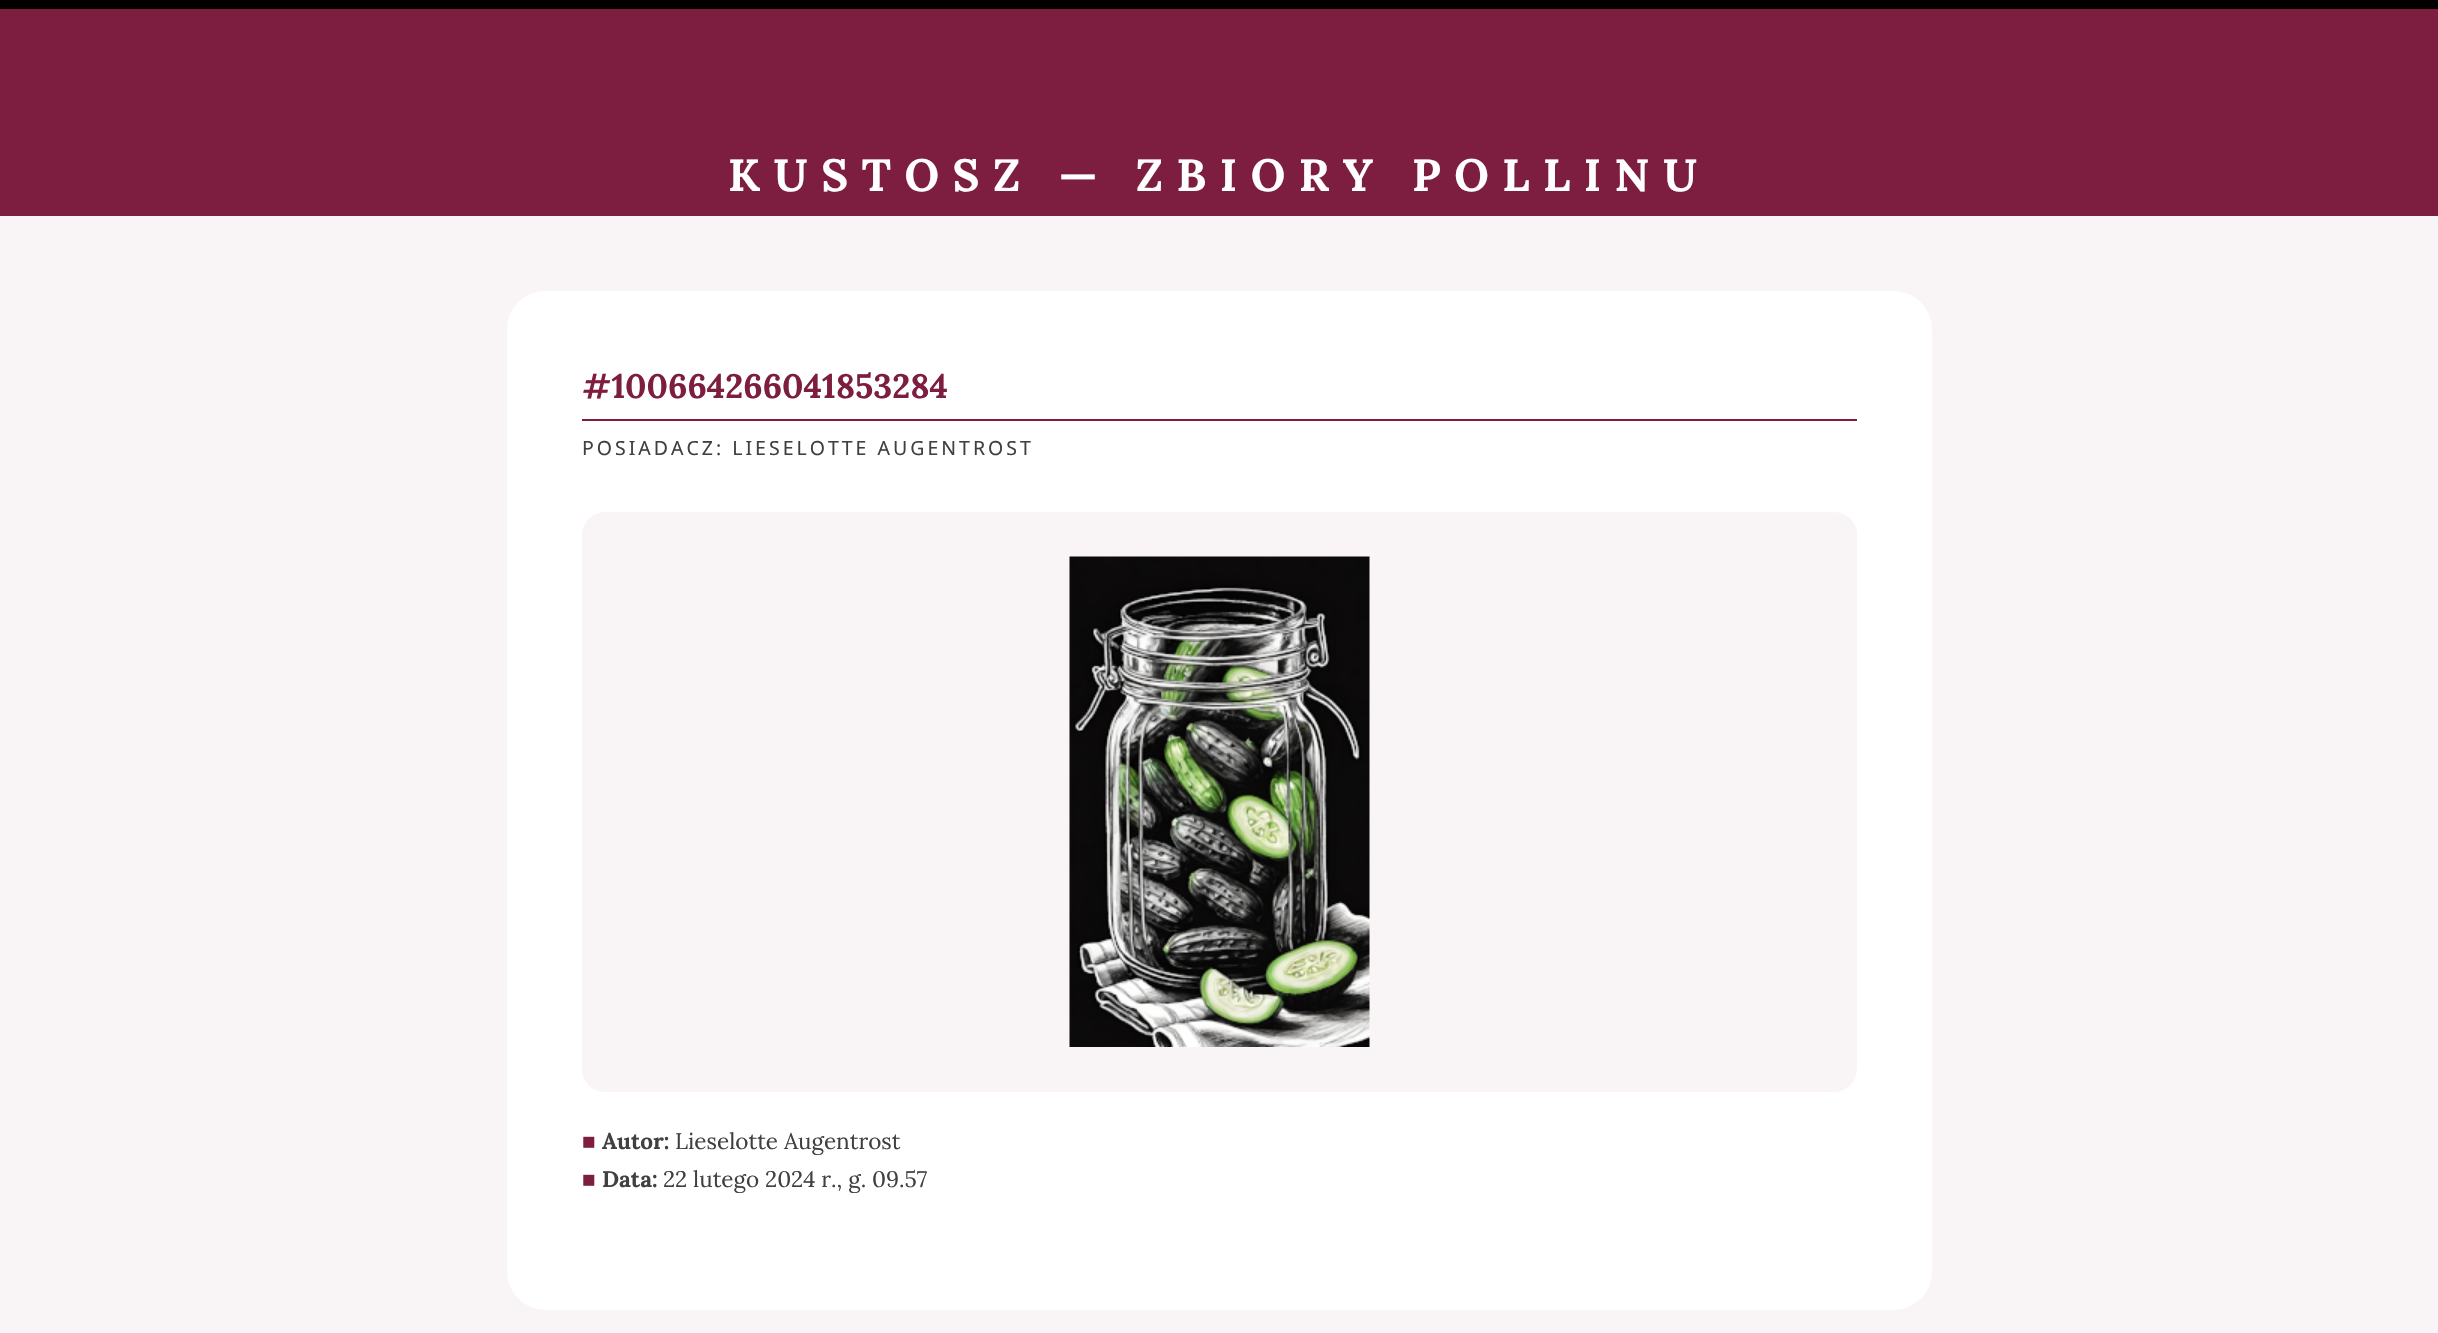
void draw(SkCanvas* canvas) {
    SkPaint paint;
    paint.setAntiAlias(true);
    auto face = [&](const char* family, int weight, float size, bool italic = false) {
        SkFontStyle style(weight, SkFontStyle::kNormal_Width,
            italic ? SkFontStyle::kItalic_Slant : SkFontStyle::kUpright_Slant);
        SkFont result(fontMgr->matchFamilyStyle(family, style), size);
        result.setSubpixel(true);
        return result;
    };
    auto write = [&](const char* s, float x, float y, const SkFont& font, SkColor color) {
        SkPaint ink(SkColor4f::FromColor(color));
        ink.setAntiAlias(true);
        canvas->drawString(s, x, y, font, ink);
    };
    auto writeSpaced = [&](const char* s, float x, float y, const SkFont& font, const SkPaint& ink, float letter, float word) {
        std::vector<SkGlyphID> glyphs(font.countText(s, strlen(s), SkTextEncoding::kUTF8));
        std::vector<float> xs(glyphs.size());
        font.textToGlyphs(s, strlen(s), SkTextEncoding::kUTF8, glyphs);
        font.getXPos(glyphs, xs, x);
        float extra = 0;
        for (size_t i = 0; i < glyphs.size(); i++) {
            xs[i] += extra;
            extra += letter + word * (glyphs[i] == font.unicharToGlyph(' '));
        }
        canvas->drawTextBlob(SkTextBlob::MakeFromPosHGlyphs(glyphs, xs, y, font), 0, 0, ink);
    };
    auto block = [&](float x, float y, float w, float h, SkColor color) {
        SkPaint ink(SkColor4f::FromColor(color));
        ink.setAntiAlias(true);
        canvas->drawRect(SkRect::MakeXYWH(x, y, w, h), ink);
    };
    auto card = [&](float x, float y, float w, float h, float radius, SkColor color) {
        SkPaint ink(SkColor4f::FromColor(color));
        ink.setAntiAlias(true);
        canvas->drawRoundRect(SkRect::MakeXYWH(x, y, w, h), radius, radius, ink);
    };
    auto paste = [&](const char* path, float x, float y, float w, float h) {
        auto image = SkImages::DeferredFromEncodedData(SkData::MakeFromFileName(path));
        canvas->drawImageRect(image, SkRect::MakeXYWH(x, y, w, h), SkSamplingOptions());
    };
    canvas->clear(SkColorSetRGB(249, 245, 246));
    block(0, 9, 2438, 207, SkColorSetRGB(125, 29, 63));
    block(0, 0, 2438, 9, SK_ColorBLACK);
    auto kFont1 = face("Lora", 700, 45);
    paint.setColor(SK_ColorWHITE);
    writeSpaced("KUSTOSZ — ZBIORY POLLINU", 728, 191, kFont1, paint, 13.5f, 0);
    card(507, 291, 1425, 1019, 38, SK_ColorWHITE);
    block(582, 419, 1275, 2, SkColorSetRGB(125, 29, 63));
    auto kFont2 = face("Lora", 700, 33.75f);
    write("#100664266041853284", 582, 398, kFont2, SkColorSetRGB(125, 29, 63));
    auto kFont3 = face("Noto Sans", 400, 19.5f);
    paint.setColor(SkColorSetRGB(64, 64, 64));
    writeSpaced("POSIADACZ: LIESELOTTE AUGENTROST", 582, 455, kFont3, paint, 3, 0);
    card(582, 512, 1275, 580, 23, SkColorSetRGB(249, 245, 246));
    paste("pic1.png", 1069, 556, 301, 491);
    auto kFont4 = face("Liberation Serif", 400, 22.5f);
    write("■", 582, 1149, kFont4, SkColorSetRGB(125, 29, 63));
    auto kFont5 = face("Lora", 700, 22.5f);
    write("Autor:", 602, 1149, kFont5, SkColorSetRGB(64, 64, 64));
    auto kFont6 = face("Lora", 400, 22.5f);
    write("Lieselotte Augentrost", 675, 1149, kFont6, SkColorSetRGB(64, 64, 64));
    write("■", 582, 1187, kFont4, SkColorSetRGB(125, 29, 63));
    write("Data:", 602, 1187, kFont5, SkColorSetRGB(64, 64, 64));
    write("22 lutego 2024 r., g. 09.57", 663, 1187, kFont6, SkColorSetRGB(64, 64, 64));
}
